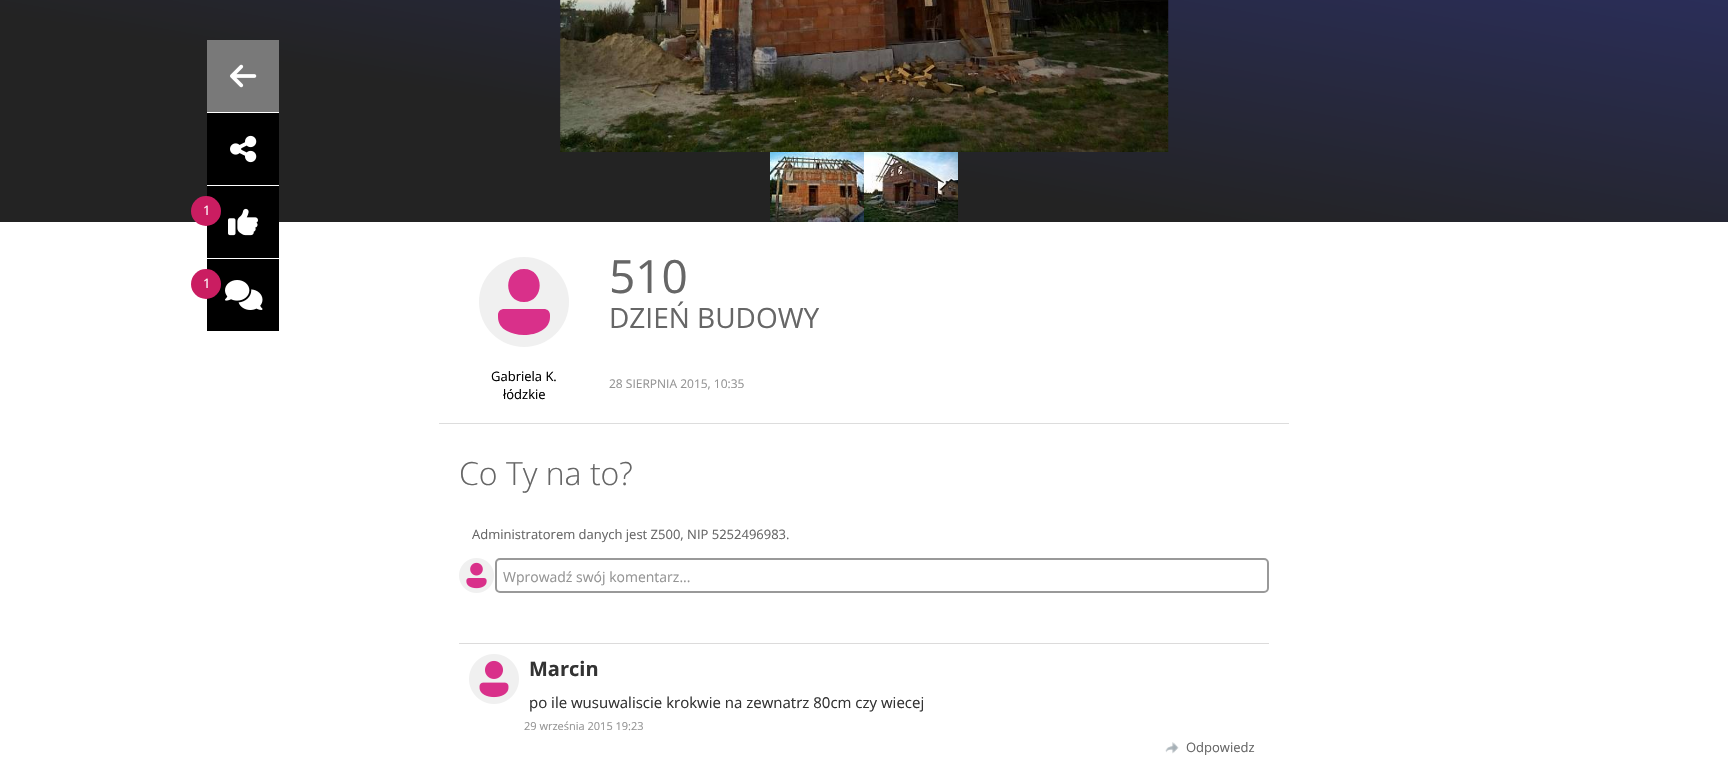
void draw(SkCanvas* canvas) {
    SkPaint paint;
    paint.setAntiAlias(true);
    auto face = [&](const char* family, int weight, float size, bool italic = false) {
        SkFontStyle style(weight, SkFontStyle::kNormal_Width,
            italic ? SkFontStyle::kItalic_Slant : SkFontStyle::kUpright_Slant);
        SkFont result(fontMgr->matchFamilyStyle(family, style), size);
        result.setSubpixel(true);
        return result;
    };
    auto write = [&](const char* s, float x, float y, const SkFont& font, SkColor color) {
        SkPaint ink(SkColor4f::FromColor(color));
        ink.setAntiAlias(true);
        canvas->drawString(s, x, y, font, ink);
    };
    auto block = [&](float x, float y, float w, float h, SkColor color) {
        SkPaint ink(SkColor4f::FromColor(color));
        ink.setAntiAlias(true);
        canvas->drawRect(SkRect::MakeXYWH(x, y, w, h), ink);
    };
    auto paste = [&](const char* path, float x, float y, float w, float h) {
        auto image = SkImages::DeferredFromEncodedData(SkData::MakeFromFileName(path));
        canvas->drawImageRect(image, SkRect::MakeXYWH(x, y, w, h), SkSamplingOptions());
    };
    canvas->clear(SK_ColorWHITE);
    {
        const SkColor colors[] = {SkColorSetRGB(35, 35, 35), SkColorSetRGB(49, 56, 140)};
        const float stops[] = {0.25f, 1};
        const SkPoint ends[] = {{793, 362}, {935, -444}};
        paint.setShader(SkGradientShader::MakeLinear(ends, colors, stops, 2, SkTileMode::kClamp));
        paint.setAlpha(255);
    }
    canvas->drawRect(SkRect::MakeXYWH(0, 0, 1728, 222), paint);
    paste("pic1.png", 560, 0, 609, 152);
    paste("pic2.png", 770, 152, 94, 70);
    paste("pic3.png", 864, 152, 94, 70);
    block(207, 112, 72, 110, SK_ColorWHITE);
    block(207, 40, 72, 72, SkColorSetRGB(121, 121, 121));
    paste("pic4.png", 230, 64, 27, 24);
    block(207, 113, 72, 72, SK_ColorBLACK);
    paste("pic5.png", 230, 135, 27, 28);
    block(207, 186, 72, 72, SK_ColorBLACK);
    paint.setShader(nullptr);
    paint.setColor(SkColorSetRGB(202, 29, 97));
    canvas->drawCircle(206, 211, 15, paint);
    auto kFont1 = face("Open Sans", 400, 13);
    write("1", 203, 215, kFont1, SK_ColorWHITE);
    paste("pic6.png", 228, 208, 30, 28);
    block(207, 259, 72, 72, SK_ColorBLACK);
    canvas->drawCircle(206, 284, 15, paint);
    write("1", 203, 288, kFont1, SK_ColorWHITE);
    paste("pic7.png", 225, 280, 38, 30);
    paint.setColor(SkColorSetRGB(240, 240, 240));
    canvas->drawCircle(524, 302, 45, paint);
    paint.setColor(SkColorSetRGB(217, 48, 138));
    canvas->drawPath(SkPathBuilder().moveTo(524, 269).cubicTo(503, 269, 503, 302, 524, 302).cubicTo(545, 302, 545, 269, 524, 269).close().moveTo(544, 309).lineTo(504, 309).cubicTo(501, 309, 498, 311, 498, 315).lineTo(498, 317).cubicTo(498, 323, 501, 328, 507, 331).cubicTo(511, 333, 517, 335, 524, 335).cubicTo(537, 335, 550, 329, 550, 317).lineTo(550, 315).cubicTo(550, 311, 547, 309, 544, 309).close().detach(), paint);
    write("Gabriela K.", 491, 381, kFont1, SK_ColorBLACK);
    write("łódzkie", 503, 399, kFont1, SK_ColorBLACK);
    auto kFont2 = face("Open Sans", 400, 46);
    write("510", 609, 293, kFont2, SkColorSetRGB(102, 102, 102));
    auto kFont3 = face("Open Sans", 400, 28);
    write("DZIEŃ BUDOWY", 609, 328, kFont3, SkColorSetRGB(102, 102, 102));
    auto kFont4 = face("Open Sans", 400, 12);
    write("28 SIERPNIA 2015, 10:35", 609, 388, kFont4, SkColorSetRGB(148, 148, 148));
    block(439, 423, 850, 1, SkColorSetRGB(221, 221, 221));
    auto kFont5 = face("Open Sans", 300, 32);
    write("Co Ty na to?", 459, 485, kFont5, SkColorSetRGB(102, 102, 102));
    write("Administratorem danych jest Z500, NIP 5252496983.", 472, 539, kFont1, SkColorSetRGB(102, 102, 102));
    paste("pic8.png", 459, 558, 35, 35);
    paint.setStyle(SkPaint::kStroke_Style);
    paint.setStrokeWidth(2);
    paint.setColor(SkColorSetRGB(153, 153, 153));
    canvas->drawRoundRect(SkRect::MakeXYWH(496, 559, 772, 33), 4, 4, paint);
    auto kFont6 = face("Open Sans", 400, 14);
    write("Wprowadź swój komentarz...", 503, 582, kFont6, SkColorSetRGB(148, 148, 148));
    block(459, 643, 810, 1, SkColorSetRGB(220, 219, 219));
    paste("pic9.png", 469, 654, 50, 50);
    auto kFont7 = face("Open Sans", 700, 20);
    write("Marcin", 529, 676, kFont7, SkColorSetRGB(51, 51, 51));
    auto kFont8 = face("Open Sans", 400, 15);
    write("po ile wusuwaliscie krokwie na zewnatrz 80cm czy wiecej", 529, 708, kFont8, SkColorSetRGB(51, 51, 51));
    auto kFont9 = face("Open Sans", 400, 11);
    write("29 września 2015 19:23", 524, 730, kFont9, SkColorSetRGB(148, 148, 148));
    paste("pic10.png", 1165, 742, 14, 12);
    write("Odpowiedz", 1186, 752, kFont1, SkColorSetRGB(102, 102, 102));
}
